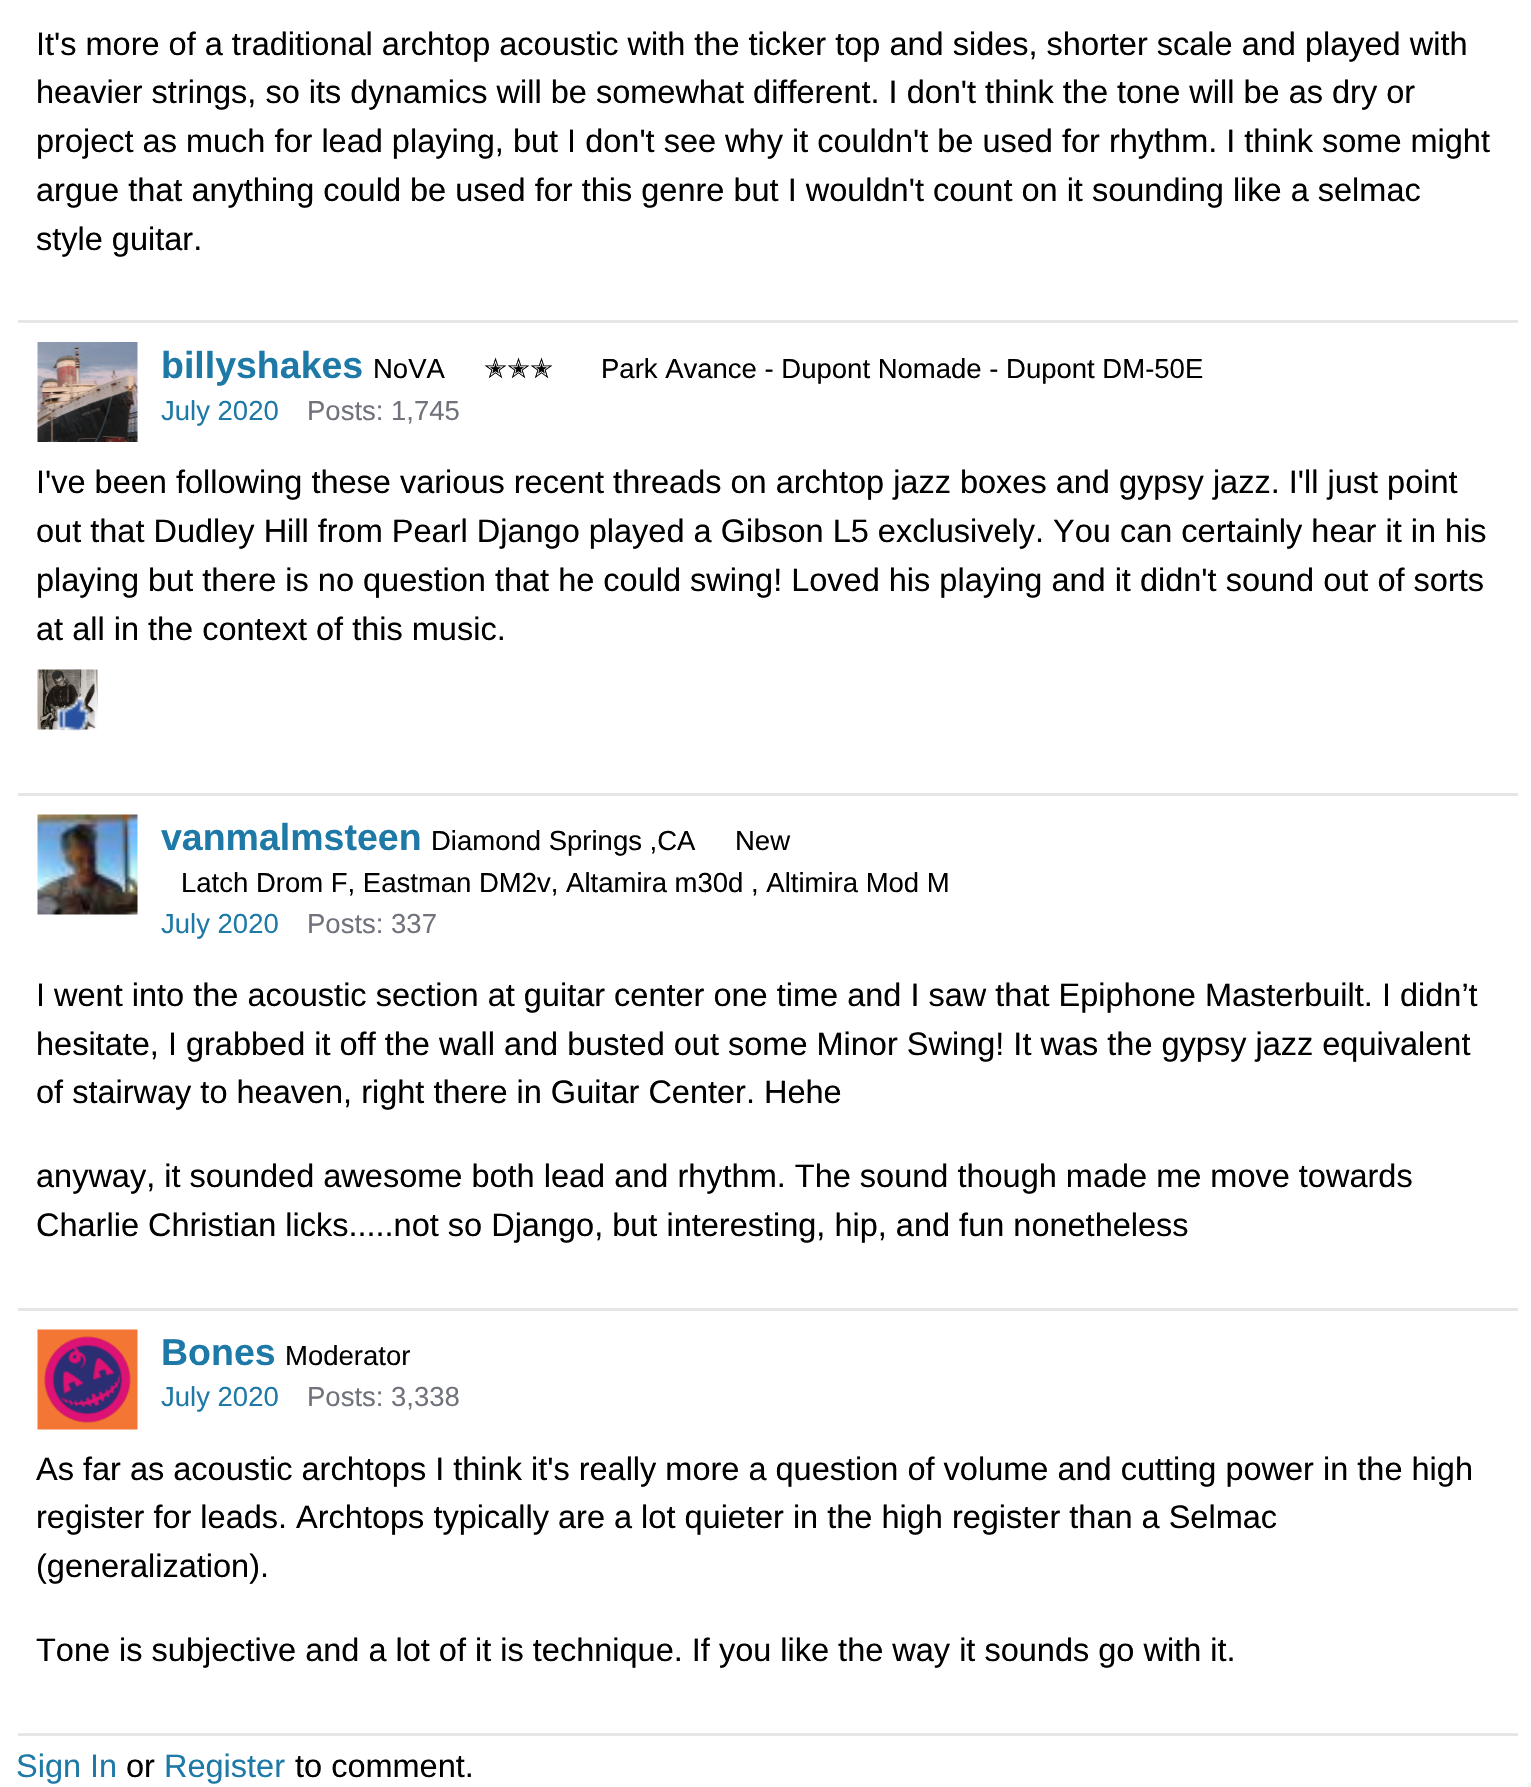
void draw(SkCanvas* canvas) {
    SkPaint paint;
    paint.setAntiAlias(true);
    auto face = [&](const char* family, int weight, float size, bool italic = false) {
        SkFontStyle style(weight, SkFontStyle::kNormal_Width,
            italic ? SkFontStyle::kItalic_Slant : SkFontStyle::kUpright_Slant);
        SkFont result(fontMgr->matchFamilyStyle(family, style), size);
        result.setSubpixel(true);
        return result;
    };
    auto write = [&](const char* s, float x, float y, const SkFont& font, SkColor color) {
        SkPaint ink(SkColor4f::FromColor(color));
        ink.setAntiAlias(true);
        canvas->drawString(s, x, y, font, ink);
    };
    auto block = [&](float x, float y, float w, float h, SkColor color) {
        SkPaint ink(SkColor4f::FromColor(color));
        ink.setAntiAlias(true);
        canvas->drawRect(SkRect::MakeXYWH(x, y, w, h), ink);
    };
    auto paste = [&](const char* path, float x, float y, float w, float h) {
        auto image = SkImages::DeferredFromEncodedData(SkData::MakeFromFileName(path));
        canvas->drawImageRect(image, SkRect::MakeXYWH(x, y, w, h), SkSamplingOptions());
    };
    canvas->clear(SK_ColorWHITE);
    block(18, 320, 1500, 3, SkColorSetRGB(230, 230, 230));
    auto kFont1 = face("Liberation Sans", 400, 32.5f);
    write("It's more of a traditional archtop acoustic with the ticker top and sides, shorter scale and played with", 36, 55, kFont1, SK_ColorBLACK);
    write("heavier strings, so its dynamics will be somewhat different. I don't think the tone will be as dry or", 36, 103, kFont1, SK_ColorBLACK);
    write("project as much for lead playing, but I don't see why it couldn't be used for rhythm. I think some might", 36, 152, kFont1, SK_ColorBLACK);
    write("argue that anything could be used for this genre but I wouldn't count on it sounding like a selmac", 36, 201, kFont1, SK_ColorBLACK);
    write("style guitar.", 36, 250, kFont1, SK_ColorBLACK);
    block(18, 793, 1500, 3, SkColorSetRGB(230, 230, 230));
    paste("pic1.png", 37, 342, 101, 100);
    auto kFont2 = face("Liberation Sans", 700, 37.5f);
    write("billyshakes", 161, 378, kFont2, SkColorSetRGB(30, 121, 167));
    auto kFont3 = face("Liberation Sans", 400, 27.5f);
    write("NoVA", 373, 378, kFont3, SK_ColorBLACK);
    auto kFont4 = face("DejaVu Sans", 400, 27.5f);
    write("✭✭✭", 484, 378, kFont4, SK_ColorBLACK);
    write("Park Avance - Dupont Nomade - Dupont DM-50E", 601, 378, kFont3, SK_ColorBLACK);
    write("July 2020", 161, 420, kFont3, SkColorSetRGB(30, 121, 167));
    write("Posts: 1,745", 307, 420, kFont3, SkColorSetRGB(112, 114, 124));
    write("I've been following these various recent threads on archtop jazz boxes and gypsy jazz. I'll just point", 36, 493, kFont1, SK_ColorBLACK);
    write("out that Dudley Hill from Pearl Django played a Gibson L5 exclusively. You can certainly hear it in his", 36, 542, kFont1, SK_ColorBLACK);
    write("playing but there is no question that he could swing! Loved his playing and it didn't sound out of sorts", 36, 591, kFont1, SK_ColorBLACK);
    write("at all in the context of this music.", 36, 640, kFont1, SK_ColorBLACK);
    paste("pic2.png", 37, 669, 61, 61);
    paste("pic3.png", 54, 694, 37, 37);
    block(18, 1308, 1500, 3, SkColorSetRGB(230, 230, 230));
    paste("pic4.png", 37, 814, 101, 101);
    write("vanmalmsteen", 161, 850, kFont2, SkColorSetRGB(30, 121, 167));
    write("Diamond Springs ,CA", 431, 850, kFont3, SK_ColorBLACK);
    write("New", 735, 850, kFont3, SK_ColorBLACK);
    write("Latch Drom F, Eastman DM2v, Altamira m30d , Altimira Mod M", 181, 892, kFont3, SK_ColorBLACK);
    write("July 2020", 161, 933, kFont3, SkColorSetRGB(30, 121, 167));
    write("Posts: 337", 307, 933, kFont3, SkColorSetRGB(112, 114, 124));
    write("I went into the acoustic section at guitar center one time and I saw that Epiphone Masterbuilt. I didn’t", 36, 1006, kFont1, SK_ColorBLACK);
    write("hesitate, I grabbed it off the wall and busted out some Minor Swing! It was the gypsy jazz equivalent", 36, 1055, kFont1, SK_ColorBLACK);
    write("of stairway to heaven, right there in Guitar Center. Hehe", 36, 1103, kFont1, SK_ColorBLACK);
    write("anyway, it sounded awesome both lead and rhythm. The sound though made me move towards", 36, 1187, kFont1, SK_ColorBLACK);
    write("Charlie Christian licks.....not so Django, but interesting, hip, and fun nonetheless", 36, 1236, kFont1, SK_ColorBLACK);
    block(18, 1733, 1500, 3, SkColorSetRGB(230, 230, 230));
    paste("pic5.png", 37, 1329, 101, 101);
    write("Bones", 161, 1365, kFont2, SkColorSetRGB(30, 121, 167));
    write("Moderator", 285, 1365, kFont3, SK_ColorBLACK);
    write("July 2020", 161, 1406, kFont3, SkColorSetRGB(30, 121, 167));
    write("Posts: 3,338", 307, 1406, kFont3, SkColorSetRGB(112, 114, 124));
    write("As far as acoustic archtops I think it's really more a question of volume and cutting power in the high", 36, 1480, kFont1, SK_ColorBLACK);
    write("register for leads. Archtops typically are a lot quieter in the high register than a Selmac", 36, 1528, kFont1, SK_ColorBLACK);
    write("(generalization).", 36, 1577, kFont1, SK_ColorBLACK);
    write("Tone is subjective and a lot of it is technique. If you like the way it sounds go with it.", 36, 1661, kFont1, SK_ColorBLACK);
    write("Sign In", 16, 1777, kFont1, SkColorSetRGB(30, 121, 167));
    write("or", 126, 1777, kFont1, SK_ColorBLACK);
    write("Register", 164, 1777, kFont1, SkColorSetRGB(30, 121, 167));
    write("to comment.", 295, 1777, kFont1, SK_ColorBLACK);
    block(1528, 1783, 3, 4, SkColorSetRGB(245, 245, 245));
}
